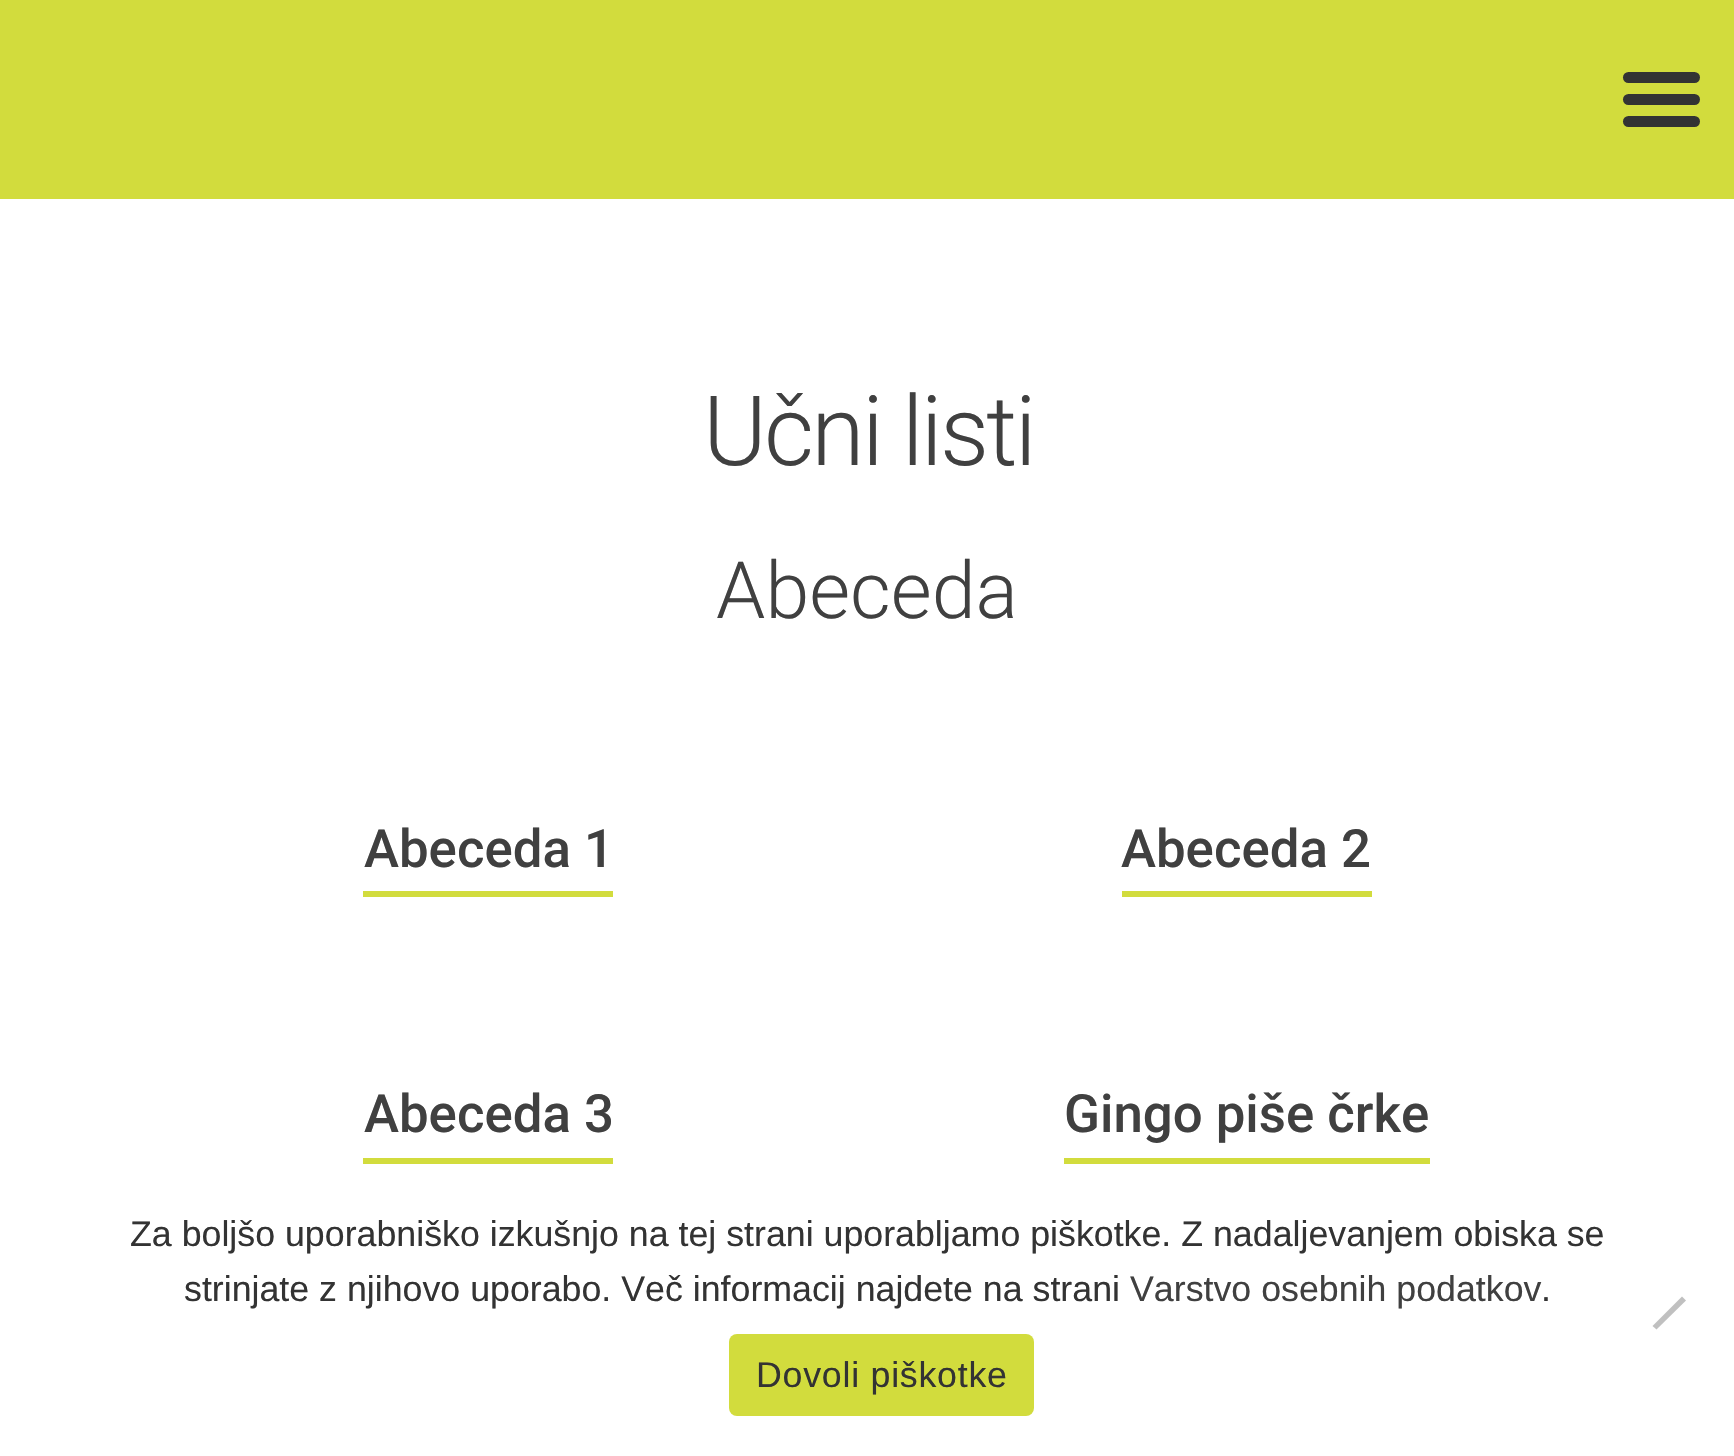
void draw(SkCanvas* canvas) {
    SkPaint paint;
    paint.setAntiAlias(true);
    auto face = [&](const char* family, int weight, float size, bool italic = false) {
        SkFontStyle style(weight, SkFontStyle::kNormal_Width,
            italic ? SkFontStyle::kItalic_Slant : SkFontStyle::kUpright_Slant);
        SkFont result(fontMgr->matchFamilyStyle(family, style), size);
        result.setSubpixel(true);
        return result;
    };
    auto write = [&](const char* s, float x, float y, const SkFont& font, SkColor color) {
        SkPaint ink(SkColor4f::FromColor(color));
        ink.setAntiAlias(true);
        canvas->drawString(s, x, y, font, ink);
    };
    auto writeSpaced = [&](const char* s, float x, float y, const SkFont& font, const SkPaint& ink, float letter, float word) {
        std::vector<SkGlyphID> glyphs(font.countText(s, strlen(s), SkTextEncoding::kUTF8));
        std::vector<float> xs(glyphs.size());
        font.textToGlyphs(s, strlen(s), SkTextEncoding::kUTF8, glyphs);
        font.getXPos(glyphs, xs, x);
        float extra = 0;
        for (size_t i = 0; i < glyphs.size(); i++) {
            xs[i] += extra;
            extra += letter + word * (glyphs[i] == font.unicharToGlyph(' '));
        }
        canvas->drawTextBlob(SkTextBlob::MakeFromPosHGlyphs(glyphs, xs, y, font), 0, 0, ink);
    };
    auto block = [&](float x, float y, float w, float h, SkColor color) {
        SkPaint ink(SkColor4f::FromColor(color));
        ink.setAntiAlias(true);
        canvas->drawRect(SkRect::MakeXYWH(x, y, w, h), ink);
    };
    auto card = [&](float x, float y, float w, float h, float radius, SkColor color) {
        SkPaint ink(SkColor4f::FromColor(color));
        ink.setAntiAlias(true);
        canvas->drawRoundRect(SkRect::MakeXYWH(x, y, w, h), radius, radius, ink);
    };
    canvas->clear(SK_ColorWHITE);
    block(0, 0, 1734, 199, SkColorSetRGB(210, 220, 61));
    card(1623, 72, 77, 11, 5.5f, SkColorSetRGB(51, 51, 51));
    card(1623, 94, 77, 11, 5.5f, SkColorSetRGB(51, 51, 51));
    card(1623, 116, 77, 11, 5.5f, SkColorSetRGB(51, 51, 51));
    auto kFont1 = face("Roboto", 300, 97);
    paint.setColor(SkColorSetRGB(64, 64, 64));
    writeSpaced("Učni listi", 703, 465, kFont1, paint, -2.75f, 0);
    auto kFont2 = face("Roboto", 300, 79);
    write("Abeceda", 716, 618, kFont2, SkColorSetRGB(64, 64, 64));
    block(363, 891, 250, 6, SkColorSetRGB(210, 220, 61));
    auto kFont3 = face("Roboto", 500, 52.75f);
    write("Abeceda 1", 364, 867, kFont3, SkColorSetRGB(64, 64, 64));
    block(1122, 891, 250, 6, SkColorSetRGB(210, 220, 61));
    write("Abeceda 2", 1121, 867, kFont3, SkColorSetRGB(64, 64, 64));
    block(363, 1158, 250, 6, SkColorSetRGB(210, 220, 61));
    write("Abeceda 3", 364, 1132, kFont3, SkColorSetRGB(64, 64, 64));
    block(1064, 1158, 366, 6, SkColorSetRGB(210, 220, 61));
    write("Gingo piše črke", 1064, 1132, kFont3, SkColorSetRGB(64, 64, 64));
    auto kFont4 = face("Liberation Sans", 400, 35.75f);
    write("Za boljšo uporabniško izkušnjo na tej strani uporabljamo piškotke. Z nadaljevanjem obiska se", 130, 1246, kFont4, SkColorSetRGB(51, 51, 51));
    write("strinjate z njihovo uporabo. Več informacij najdete na strani", 184, 1301, kFont4, SkColorSetRGB(51, 51, 51));
    write("Varstvo osebnih podatkov", 1130, 1301, kFont4, SkColorSetRGB(64, 64, 64));
    write(".", 1541, 1301, kFont4, SkColorSetRGB(51, 51, 51));
    paint.setColor(SkColorSetRGB(192, 192, 192));
    canvas->drawPath(SkPathBuilder().moveTo(1682, 1296.5f).lineTo(1686, 1300.5f).lineTo(1656.5f, 1329.5f).lineTo(1652.5f, 1326).close().detach(), paint);
    card(729, 1334, 305, 82, 8, SkColorSetRGB(210, 220, 61));
    paint.setColor(SkColorSetRGB(51, 51, 51));
    writeSpaced("Dovoli piškotke", 756, 1387, kFont4, paint, 0.75f, 0);
}
